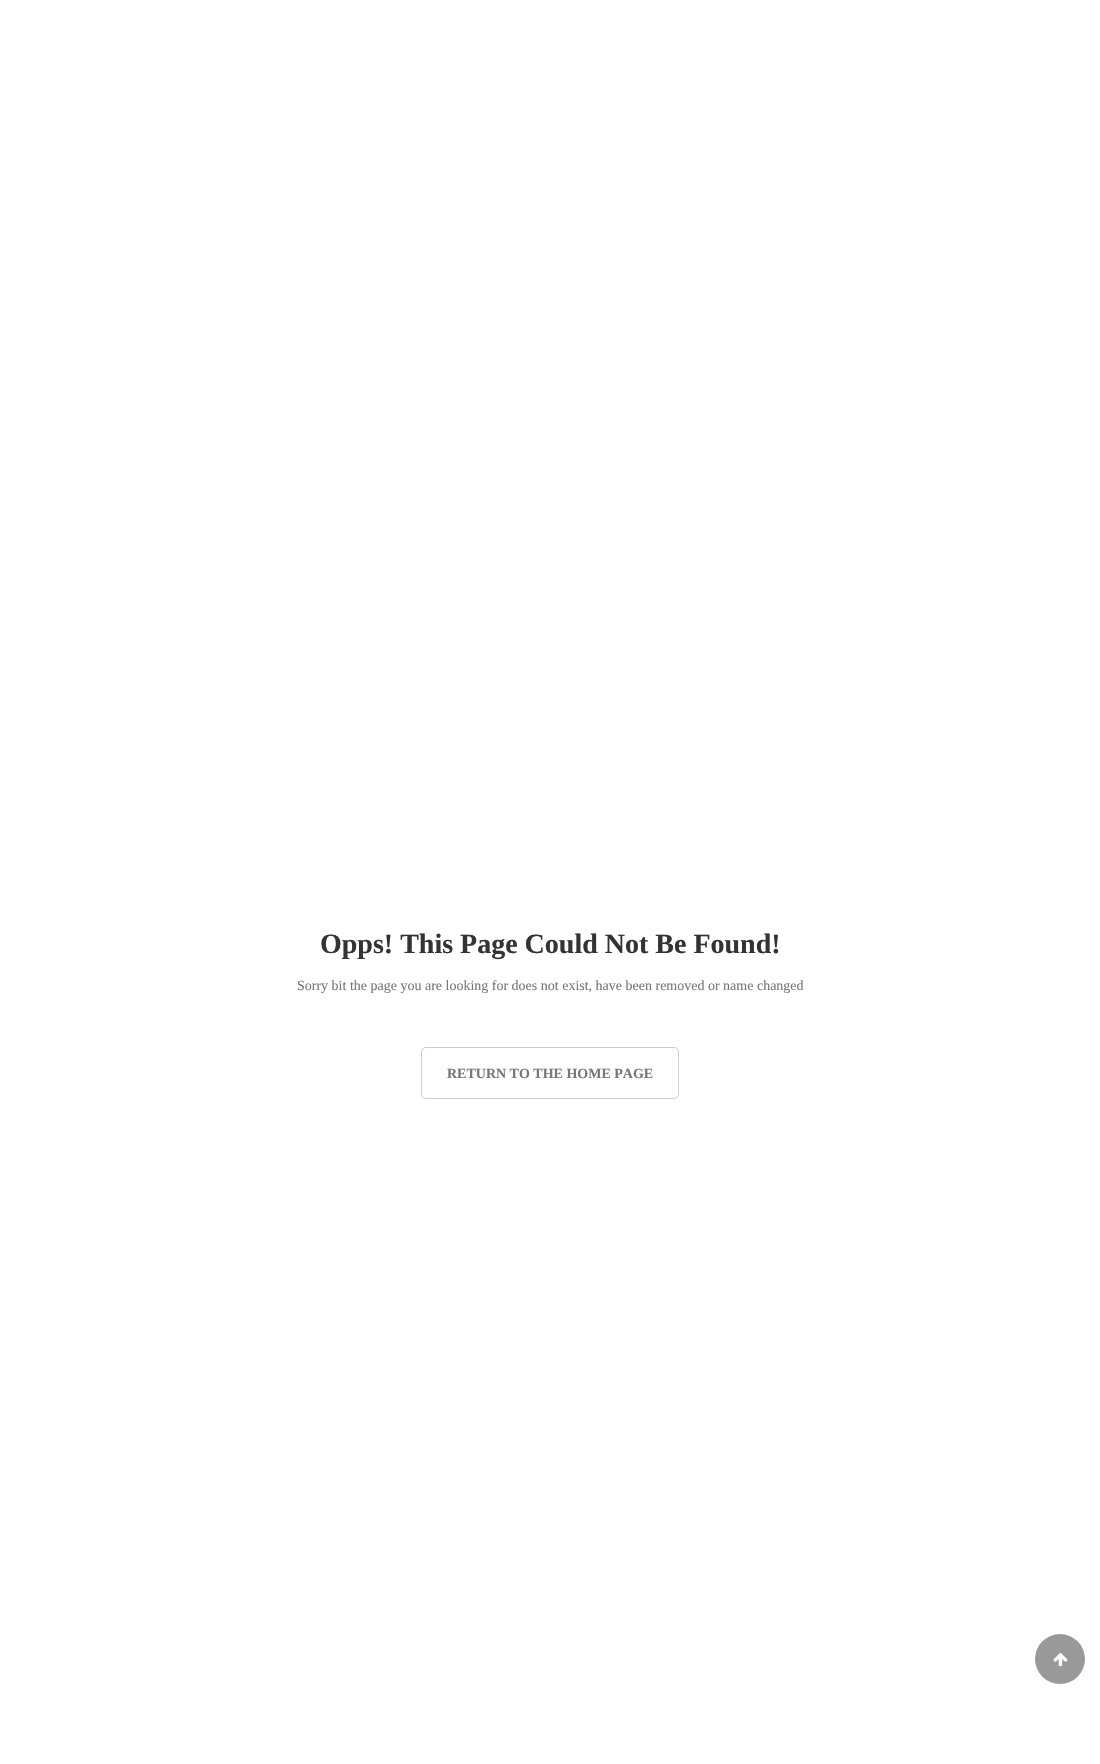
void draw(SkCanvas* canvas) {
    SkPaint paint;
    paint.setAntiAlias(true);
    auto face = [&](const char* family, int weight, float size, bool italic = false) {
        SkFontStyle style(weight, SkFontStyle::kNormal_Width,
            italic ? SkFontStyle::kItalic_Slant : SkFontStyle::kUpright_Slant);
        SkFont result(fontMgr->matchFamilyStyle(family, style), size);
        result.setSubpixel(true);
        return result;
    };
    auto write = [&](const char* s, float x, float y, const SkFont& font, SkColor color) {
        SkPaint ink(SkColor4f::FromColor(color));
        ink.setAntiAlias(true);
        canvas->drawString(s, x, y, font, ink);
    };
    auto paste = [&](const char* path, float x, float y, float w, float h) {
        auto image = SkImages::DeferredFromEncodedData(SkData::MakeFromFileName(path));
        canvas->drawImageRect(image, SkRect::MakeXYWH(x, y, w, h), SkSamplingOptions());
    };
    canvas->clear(SK_ColorWHITE);
    auto kFont1 = face("Liberation Serif", 700, 28);
    write("Opps! This Page Could Not Be Found!", 320, 953, kFont1, SkColorSetRGB(51, 51, 51));
    auto kFont2 = face("Liberation Serif", 400, 14);
    write("Sorry bit the page you are looking for does not exist, have been removed or name changed", 297, 990, kFont2, SkColorSetRGB(119, 119, 119));
    paint.setStyle(SkPaint::kStroke_Style);
    paint.setStrokeWidth(1);
    paint.setColor(SkColorSetRGB(204, 204, 204));
    canvas->drawRoundRect(SkRect::MakeXYWH(421.5f, 1047.5f, 257, 51), 4.5f, 4.5f, paint);
    auto kFont3 = face("Liberation Serif", 700, 14);
    write("RETURN TO THE HOME PAGE", 447, 1078, kFont3, SkColorSetRGB(119, 119, 119));
    paint.setStyle(SkPaint::kFill_Style);
    paint.setColor(SkColorSetRGB(153, 153, 153));
    canvas->drawCircle(1060, 1659, 25, paint);
    paste("pic1.png", 1053, 1653, 15, 14);
}
